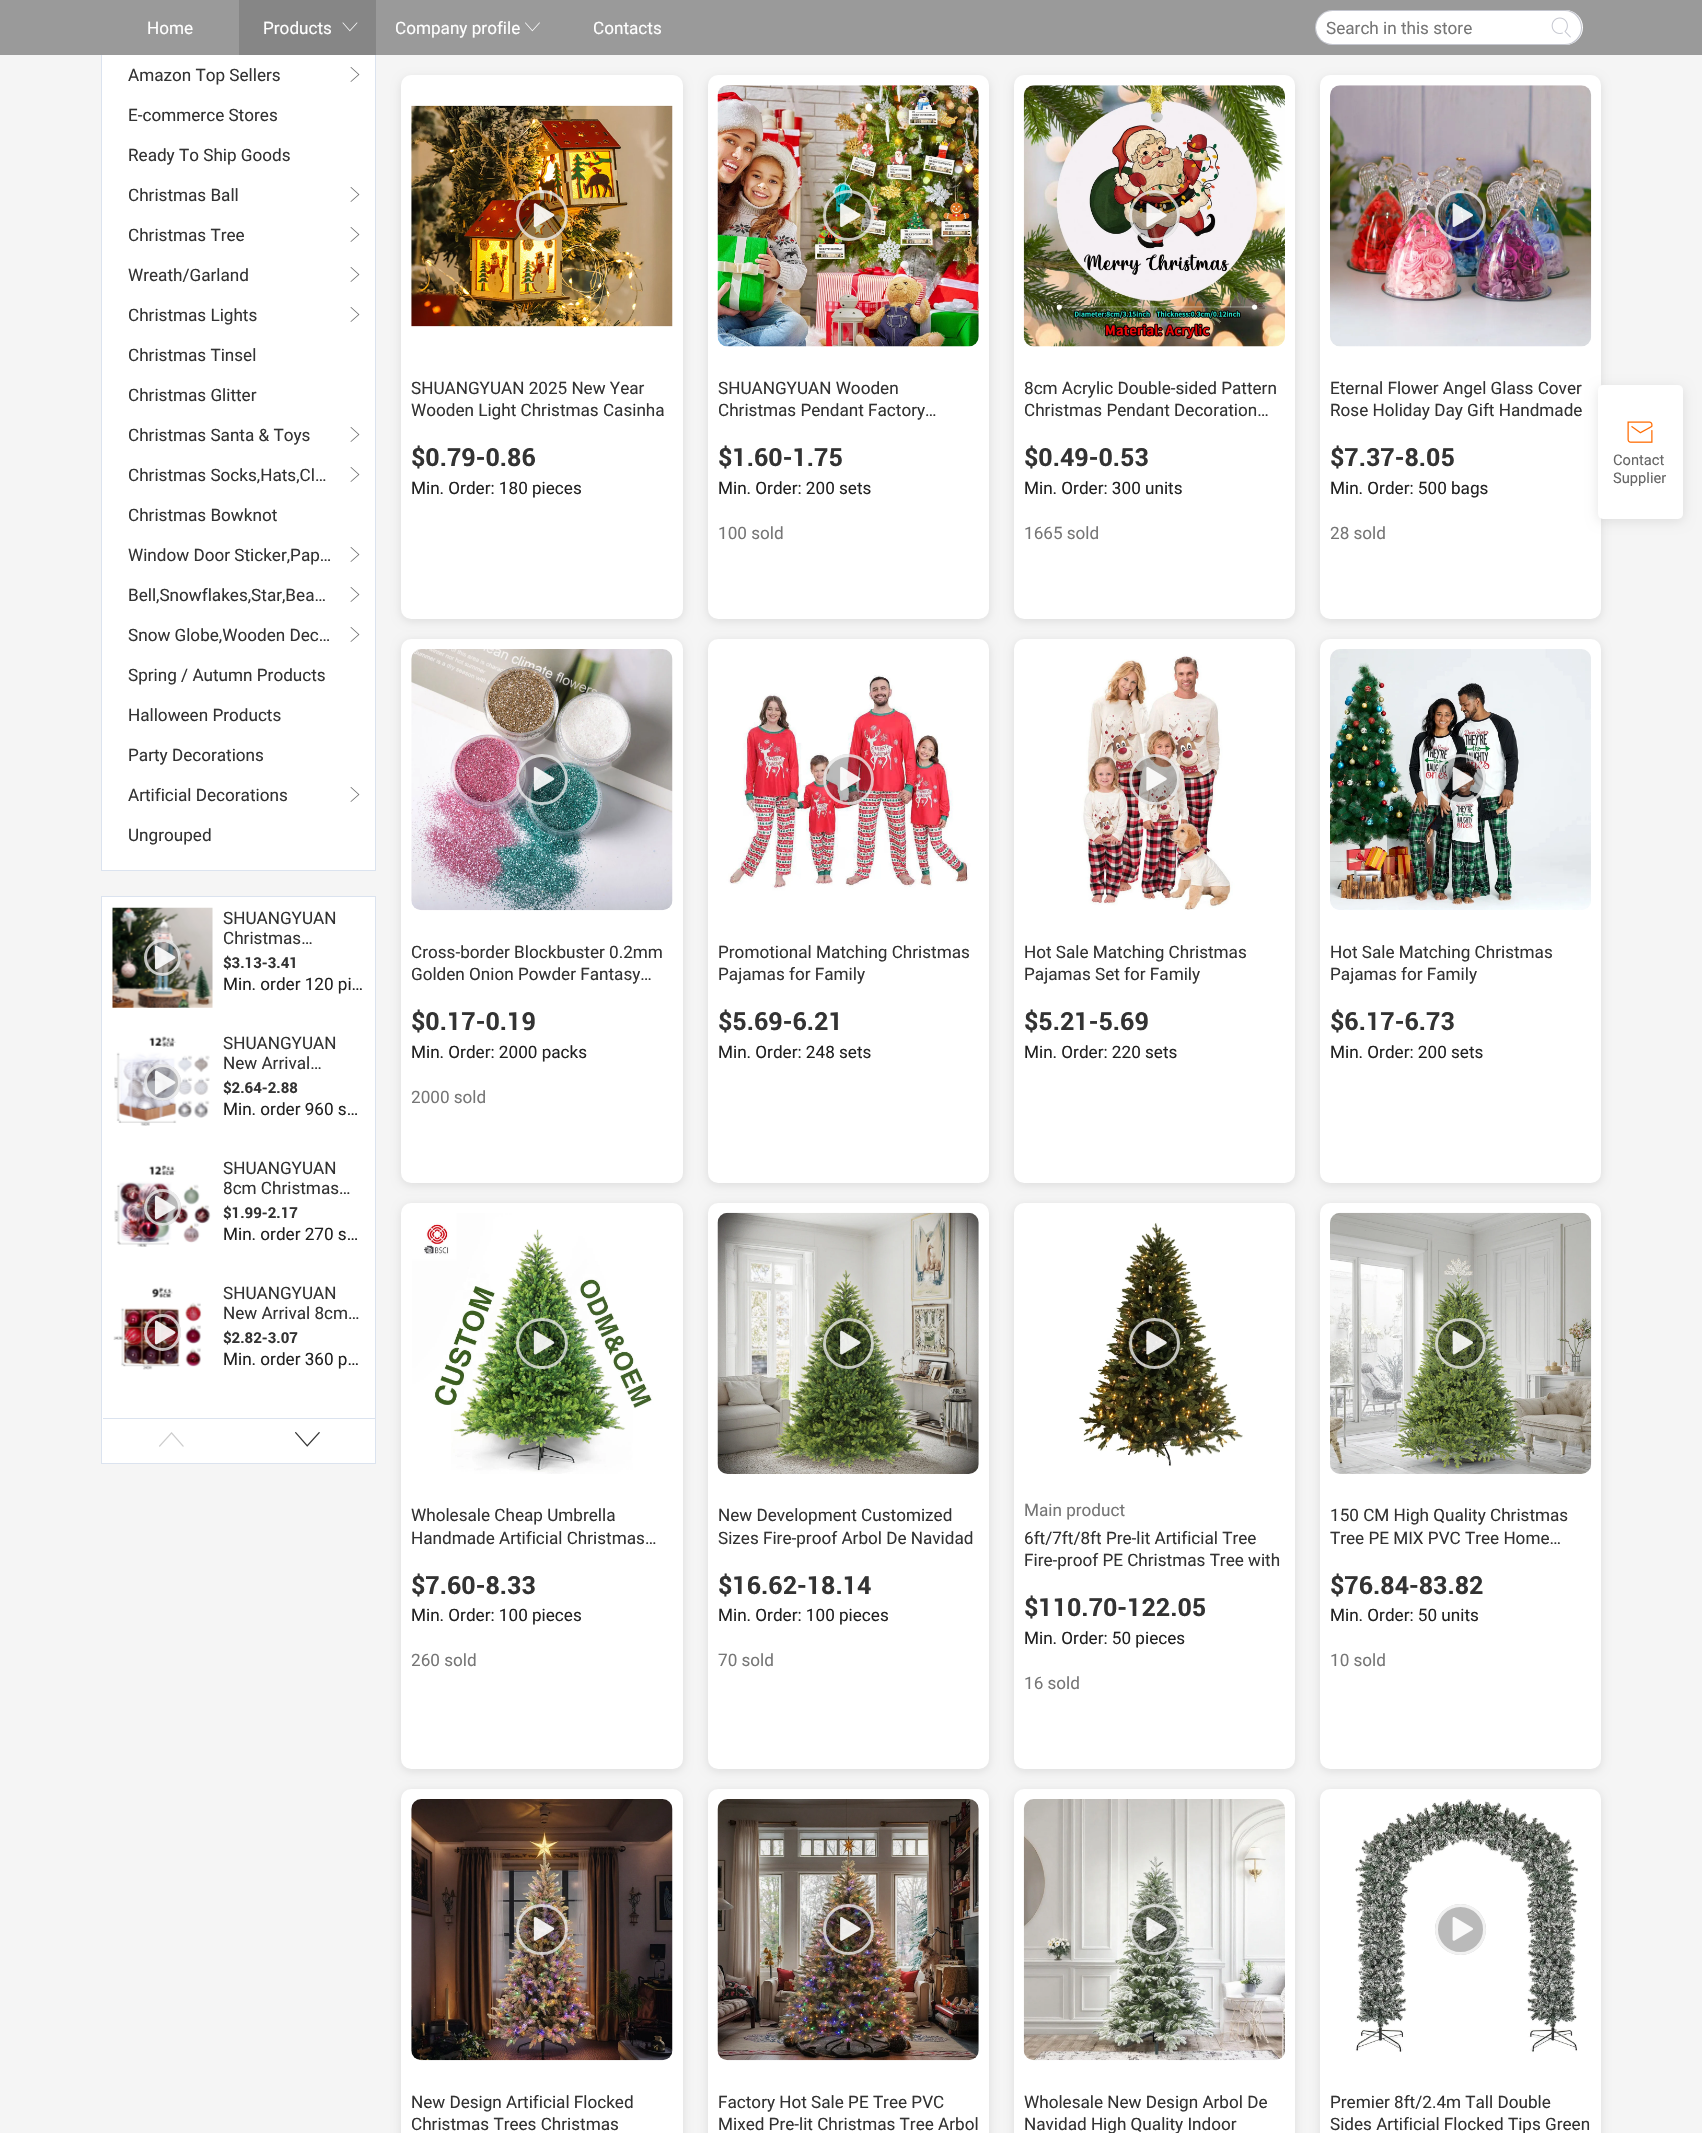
void draw(SkCanvas* canvas) {
    SkPaint paint;
    paint.setAntiAlias(true);
    auto face = [&](const char* family, int weight, float size, bool italic = false) {
        SkFontStyle style(weight, SkFontStyle::kNormal_Width,
            italic ? SkFontStyle::kItalic_Slant : SkFontStyle::kUpright_Slant);
        SkFont result(fontMgr->matchFamilyStyle(family, style), size);
        result.setSubpixel(true);
        return result;
    };
    auto write = [&](const char* s, float x, float y, const SkFont& font, SkColor color) {
        SkPaint ink(SkColor4f::FromColor(color));
        ink.setAntiAlias(true);
        canvas->drawString(s, x, y, font, ink);
    };
    auto block = [&](float x, float y, float w, float h, SkColor color) {
        SkPaint ink(SkColor4f::FromColor(color));
        ink.setAntiAlias(true);
        canvas->drawRect(SkRect::MakeXYWH(x, y, w, h), ink);
    };
    auto card = [&](float x, float y, float w, float h, float radius, SkColor color) {
        SkPaint ink(SkColor4f::FromColor(color));
        ink.setAntiAlias(true);
        canvas->drawRoundRect(SkRect::MakeXYWH(x, y, w, h), radius, radius, ink);
    };
    auto paste = [&](const char* path, float x, float y, float w, float h) {
        auto image = SkImages::DeferredFromEncodedData(SkData::MakeFromFileName(path));
        canvas->drawImageRect(image, SkRect::MakeXYWH(x, y, w, h), SkSamplingOptions());
    };
    canvas->clear(SkColorSetRGB(245, 245, 245));
    block(0, 0, 1702, 55, SkColorSetRGB(154, 154, 154));
    auto kFont1 = face("Roboto", 400, 17.5f);
    write("Home", 147, 34, kFont1, SK_ColorWHITE);
    block(239, 0, 137, 55, SkColorSetRGB(134, 134, 134));
    write("Products", 263, 34, kFont1, SK_ColorWHITE);
    paste("pic1.png", 342, 22, 16, 10);
    write("Company profile", 395, 34, kFont1, SK_ColorWHITE);
    paste("pic2.png", 525, 22, 15, 10);
    write("Contacts", 593, 34, kFont1, SK_ColorWHITE);
    paint.setColor(SkColorSetRGB(196, 198, 207));
    canvas->drawPath(SkPathBuilder(SkPathFillType::kEvenOdd).moveTo(1332, 10).lineTo(1541, 10).lineTo(1541, 45).lineTo(1332, 45).cubicTo(1323, 45, 1315, 37, 1315, 28).cubicTo(1315, 18, 1323, 10, 1332, 10).close().moveTo(1332, 11).lineTo(1541, 11).lineTo(1541, 44).lineTo(1332, 44).cubicTo(1324, 44, 1316, 36, 1316, 28).cubicTo(1316, 19, 1324, 11, 1332, 11).close().detach(), paint);
    paint.setColor(SK_ColorWHITE);
    canvas->drawPath(SkPathBuilder().moveTo(1332.5f, 11).lineTo(1540.5f, 11).cubicTo(1541, 11, 1541, 11, 1541, 11.5f).lineTo(1541, 43.5f).cubicTo(1541, 44, 1541, 44, 1540.5f, 44).lineTo(1332.5f, 44).cubicTo(1323.5f, 44, 1316, 36.5f, 1316, 27.5f).cubicTo(1316, 18.5f, 1323.5f, 11, 1332.5f, 11).close().detach(), paint);
    write("Search in this store", 1326, 34, kFont1, SkColorSetRGB(118, 118, 118));
    canvas->drawPath(SkPathBuilder().moveTo(1541, 10).lineTo(1565.5f, 10).cubicTo(1575, 10, 1583, 18, 1583, 27.5f).cubicTo(1583, 37, 1575, 45, 1565.5f, 45).lineTo(1541, 45).close().detach(), paint);
    paint.setColor(SkColorSetRGB(196, 198, 207));
    canvas->drawPath(SkPathBuilder(SkPathFillType::kEvenOdd).moveTo(1541, 10).lineTo(1565, 10).cubicTo(1575, 10, 1582, 18, 1582, 28).cubicTo(1582, 37, 1575, 45, 1565, 45).lineTo(1541, 45).close().moveTo(1541, 11).lineTo(1565, 11).cubicTo(1574, 11, 1581, 19, 1581, 28).cubicTo(1581, 36, 1574, 44, 1565, 44).lineTo(1541, 44).close().detach(), paint);
    paste("pic3.png", 1551, 17, 20, 21);
    block(102, 55, 273, 815, SK_ColorWHITE);
    block(375, 55, 1, 816, SkColorSetRGB(219, 227, 239));
    block(101, 870, 275, 1, SkColorSetRGB(219, 227, 239));
    block(101, 55, 1, 816, SkColorSetRGB(219, 227, 239));
    write("Amazon Top Sellers", 128, 81, kFont1, SkColorSetRGB(51, 51, 51));
    paste("pic4.png", 350, 67, 10, 15);
    write("E-commerce Stores", 128, 121, kFont1, SkColorSetRGB(51, 51, 51));
    write("Ready To Ship Goods", 128, 161, kFont1, SkColorSetRGB(51, 51, 51));
    write("Christmas Ball", 128, 201, kFont1, SkColorSetRGB(51, 51, 51));
    paste("pic4.png", 350, 187, 10, 15);
    write("Christmas Tree", 128, 241, kFont1, SkColorSetRGB(51, 51, 51));
    paste("pic4.png", 350, 227, 10, 15);
    write("Wreath/Garland", 128, 281, kFont1, SkColorSetRGB(51, 51, 51));
    paste("pic4.png", 350, 267, 10, 15);
    write("Christmas Lights", 128, 321, kFont1, SkColorSetRGB(51, 51, 51));
    paste("pic4.png", 350, 307, 10, 15);
    write("Christmas Tinsel", 128, 361, kFont1, SkColorSetRGB(51, 51, 51));
    write("Christmas Glitter", 128, 401, kFont1, SkColorSetRGB(51, 51, 51));
    write("Christmas Santa & Toys", 128, 441, kFont1, SkColorSetRGB(51, 51, 51));
    paste("pic4.png", 350, 427, 10, 15);
    write("Christmas Socks,Hats,Cl…", 128, 481, kFont1, SkColorSetRGB(51, 51, 51));
    paste("pic4.png", 350, 467, 10, 15);
    write("Christmas Bowknot", 128, 521, kFont1, SkColorSetRGB(51, 51, 51));
    write("Window Door Sticker,Pap…", 128, 561, kFont1, SkColorSetRGB(51, 51, 51));
    paste("pic4.png", 350, 547, 10, 15);
    write("Bell,Snowflakes,Star,Bea…", 128, 601, kFont1, SkColorSetRGB(51, 51, 51));
    paste("pic4.png", 350, 587, 10, 15);
    write("Snow Globe,Wooden Dec…", 128, 641, kFont1, SkColorSetRGB(51, 51, 51));
    paste("pic4.png", 350, 627, 10, 15);
    write("Spring / Autumn Products", 128, 681, kFont1, SkColorSetRGB(51, 51, 51));
    write("Halloween Products", 128, 721, kFont1, SkColorSetRGB(51, 51, 51));
    write("Party Decorations", 128, 761, kFont1, SkColorSetRGB(51, 51, 51));
    write("Artificial Decorations", 128, 801, kFont1, SkColorSetRGB(51, 51, 51));
    paste("pic4.png", 350, 787, 10, 15);
    write("Ungrouped", 128, 841, kFont1, SkColorSetRGB(51, 51, 51));
    paint.setColor(SK_ColorWHITE);
    canvas->drawRect(SkRect::MakeXYWH(101.5f, 896.5f, 274, 567), paint);
    paint.setStyle(SkPaint::kStroke_Style);
    paint.setStrokeWidth(1);
    paint.setColor(SkColorSetRGB(219, 227, 239));
    canvas->drawRect(SkRect::MakeXYWH(101.5f, 896.5f, 274, 567), paint);
    paste("pic5.png", 112, 907, 101, 101);
    paint.setStyle(SkPaint::kFill_Style);
    paint.setColor(SkColorSetARGB(69, 0, 0, 0));
    canvas->drawCircle(162.5f, 957.5f, 18.5f, paint);
    paint.setStyle(SkPaint::kStroke_Style);
    paint.setStrokeWidth(3);
    paint.setColor(SkColorSetARGB(184, 255, 255, 255));
    canvas->drawCircle(162.5f, 957.5f, 17, paint);
    paste("pic6.png", 154, 945, 22, 25);
    write("SHUANGYUAN", 223, 924, kFont1, SkColorSetRGB(51, 51, 51));
    write("Christmas…", 223, 944, kFont1, SkColorSetRGB(51, 51, 51));
    auto kFont2 = face("Roboto", 700, 15);
    write("$3.13-3.41", 223, 968, kFont2, SkColorSetRGB(51, 51, 51));
    write("Min. order 120 pi…", 223, 990, kFont1, SkColorSetRGB(34, 34, 34));
    paste("pic7.png", 114, 1036, 96, 90);
    paint.setStyle(SkPaint::kFill_Style);
    paint.setColor(SkColorSetARGB(69, 0, 0, 0));
    canvas->drawCircle(162.5f, 1082.5f, 18.5f, paint);
    paint.setStyle(SkPaint::kStroke_Style);
    paint.setColor(SkColorSetARGB(184, 255, 255, 255));
    canvas->drawCircle(162.5f, 1082.5f, 17, paint);
    paste("pic8.png", 154, 1070, 22, 25);
    write("SHUANGYUAN", 223, 1049, kFont1, SkColorSetRGB(51, 51, 51));
    write("New Arrival…", 223, 1069, kFont1, SkColorSetRGB(51, 51, 51));
    write("$2.64-2.88", 223, 1093, kFont2, SkColorSetRGB(51, 51, 51));
    write("Min. order 960 s…", 223, 1115, kFont1, SkColorSetRGB(34, 34, 34));
    paste("pic9.png", 114, 1165, 97, 82);
    paint.setStyle(SkPaint::kFill_Style);
    paint.setColor(SkColorSetARGB(69, 0, 0, 0));
    canvas->drawCircle(162.5f, 1207.5f, 18.5f, paint);
    paint.setStyle(SkPaint::kStroke_Style);
    paint.setColor(SkColorSetARGB(184, 255, 255, 255));
    canvas->drawCircle(162.5f, 1207.5f, 17, paint);
    paste("pic10.png", 154, 1195, 22, 25);
    write("SHUANGYUAN", 223, 1174, kFont1, SkColorSetRGB(51, 51, 51));
    write("8cm Christmas…", 223, 1194, kFont1, SkColorSetRGB(51, 51, 51));
    write("$1.99-2.17", 223, 1218, kFont2, SkColorSetRGB(51, 51, 51));
    write("Min. order 270 s…", 223, 1240, kFont1, SkColorSetRGB(34, 34, 34));
    paste("pic11.png", 113, 1287, 89, 83);
    paint.setStyle(SkPaint::kFill_Style);
    paint.setColor(SkColorSetARGB(69, 0, 0, 0));
    canvas->drawCircle(162.5f, 1332.5f, 18.5f, paint);
    paint.setStyle(SkPaint::kStroke_Style);
    paint.setColor(SkColorSetARGB(184, 255, 255, 255));
    canvas->drawCircle(162.5f, 1332.5f, 17, paint);
    paste("pic12.png", 154, 1320, 22, 25);
    write("SHUANGYUAN", 223, 1299, kFont1, SkColorSetRGB(51, 51, 51));
    write("New Arrival 8cm…", 223, 1319, kFont1, SkColorSetRGB(51, 51, 51));
    write("$2.82-3.07", 223, 1343, kFont2, SkColorSetRGB(51, 51, 51));
    write("Min. order 360 p…", 223, 1365, kFont1, SkColorSetRGB(34, 34, 34));
    block(103, 1418, 272, 1, SkColorSetRGB(219, 227, 239));
    paste("pic13.png", 159, 1432, 25, 15);
    paste("pic14.png", 295, 1432, 25, 15);
    paint.setStyle(SkPaint::kFill_Style);
    paint.setColor(SkColorSetARGB(26, 0, 0, 0));
    paint.setMaskFilter(SkMaskFilter::MakeBlur(kNormal_SkBlurStyle, 5));
    canvas->drawRoundRect(SkRect::MakeXYWH(401, 78, 282, 543), 10, 10, paint);
    paint.setMaskFilter(nullptr);
    card(401, 75, 282, 544, 10, SK_ColorWHITE);
    paste("pic15.png", 411, 88, 262, 258);
    card(516, 190, 52, 51, 25.5f, SkColorSetARGB(69, 0, 0, 0));
    paint.setStyle(SkPaint::kStroke_Style);
    paint.setColor(SkColorSetARGB(184, 255, 255, 255));
    canvas->drawRoundRect(SkRect::MakeXYWH(517.5f, 191.5f, 49, 48), 24, 24, paint);
    paste("pic16.png", 533, 203, 22, 24);
    write("SHUANGYUAN 2025 New Year", 411, 394, kFont1, SkColorSetRGB(51, 51, 51));
    write("Wooden Light Christmas Casinha", 411, 416, kFont1, SkColorSetRGB(51, 51, 51));
    auto kFont3 = face("Roboto", 700, 25);
    write("$0.79-0.86", 411, 466, kFont3, SkColorSetRGB(51, 51, 51));
    write("Min. Order: 180 pieces", 411, 494, kFont1, SkColorSetRGB(34, 34, 34));
    paint.setStyle(SkPaint::kFill_Style);
    paint.setColor(SkColorSetARGB(26, 0, 0, 0));
    paint.setMaskFilter(SkMaskFilter::MakeBlur(kNormal_SkBlurStyle, 5));
    canvas->drawRoundRect(SkRect::MakeXYWH(708, 78, 281, 543), 10, 10, paint);
    paint.setMaskFilter(nullptr);
    card(708, 75, 281, 544, 10, SK_ColorWHITE);
    paste("pic17.png", 717, 85, 262, 262);
    paint.setColor(SkColorSetARGB(69, 0, 0, 0));
    canvas->drawCircle(848.5f, 215.5f, 25.5f, paint);
    paint.setStyle(SkPaint::kStroke_Style);
    paint.setColor(SkColorSetARGB(184, 255, 255, 255));
    canvas->drawCircle(848.5f, 215.5f, 24, paint);
    paste("pic18.png", 840, 203, 21, 24);
    write("SHUANGYUAN Wooden", 718, 394, kFont1, SkColorSetRGB(51, 51, 51));
    write("Christmas Pendant Factory…", 718, 416, kFont1, SkColorSetRGB(51, 51, 51));
    write("$1.60-1.75", 718, 466, kFont3, SkColorSetRGB(51, 51, 51));
    write("Min. Order: 200 sets", 718, 494, kFont1, SkColorSetRGB(34, 34, 34));
    write("100 sold", 718, 539, kFont1, SkColorSetRGB(118, 118, 118));
    paint.setStyle(SkPaint::kFill_Style);
    paint.setColor(SkColorSetARGB(26, 0, 0, 0));
    paint.setMaskFilter(SkMaskFilter::MakeBlur(kNormal_SkBlurStyle, 5));
    canvas->drawRoundRect(SkRect::MakeXYWH(1014, 78, 281, 543), 10, 10, paint);
    paint.setMaskFilter(nullptr);
    card(1014, 75, 281, 544, 10, SK_ColorWHITE);
    paste("pic19.png", 1023, 85, 262, 262);
    paint.setColor(SkColorSetARGB(69, 0, 0, 0));
    canvas->drawCircle(1154.5f, 215.5f, 25.5f, paint);
    paint.setStyle(SkPaint::kStroke_Style);
    paint.setColor(SkColorSetARGB(184, 255, 255, 255));
    canvas->drawCircle(1154.5f, 215.5f, 24, paint);
    paste("pic20.png", 1146, 203, 21, 24);
    write("8cm Acrylic Double-sided Pattern", 1024, 394, kFont1, SkColorSetRGB(51, 51, 51));
    write("Christmas Pendant Decoration…", 1024, 416, kFont1, SkColorSetRGB(51, 51, 51));
    write("$0.49-0.53", 1024, 466, kFont3, SkColorSetRGB(51, 51, 51));
    write("Min. Order: 300 units", 1024, 494, kFont1, SkColorSetRGB(34, 34, 34));
    write("1665 sold", 1024, 539, kFont1, SkColorSetRGB(118, 118, 118));
    paint.setStyle(SkPaint::kFill_Style);
    paint.setColor(SkColorSetARGB(26, 0, 0, 0));
    paint.setMaskFilter(SkMaskFilter::MakeBlur(kNormal_SkBlurStyle, 5));
    canvas->drawRoundRect(SkRect::MakeXYWH(1320, 78, 281, 543), 10, 10, paint);
    paint.setMaskFilter(nullptr);
    card(1320, 75, 281, 544, 10, SK_ColorWHITE);
    paste("pic21.png", 1330, 85, 262, 262);
    paint.setColor(SkColorSetARGB(69, 0, 0, 0));
    canvas->drawCircle(1460.5f, 215.5f, 25.5f, paint);
    paint.setStyle(SkPaint::kStroke_Style);
    paint.setColor(SkColorSetARGB(184, 255, 255, 255));
    canvas->drawCircle(1460.5f, 215.5f, 24, paint);
    paste("pic22.png", 1452, 203, 21, 24);
    write("Eternal Flower Angel Glass Cover", 1330, 394, kFont1, SkColorSetRGB(51, 51, 51));
    write("Rose Holiday Day Gift Handmade", 1330, 416, kFont1, SkColorSetRGB(51, 51, 51));
    write("$7.37-8.05", 1330, 466, kFont3, SkColorSetRGB(51, 51, 51));
    write("Min. Order: 500 bags", 1330, 494, kFont1, SkColorSetRGB(34, 34, 34));
    write("28 sold", 1330, 539, kFont1, SkColorSetRGB(118, 118, 118));
    paint.setStyle(SkPaint::kFill_Style);
    paint.setColor(SkColorSetARGB(26, 0, 0, 0));
    paint.setMaskFilter(SkMaskFilter::MakeBlur(kNormal_SkBlurStyle, 5));
    canvas->drawRoundRect(SkRect::MakeXYWH(401, 641, 282, 544), 10, 10, paint);
    paint.setMaskFilter(nullptr);
    card(401, 639, 282, 544, 10, SK_ColorWHITE);
    paste("pic23.png", 411, 649, 262, 262);
    card(516, 754, 52, 51, 25.5f, SkColorSetARGB(69, 0, 0, 0));
    paint.setStyle(SkPaint::kStroke_Style);
    paint.setColor(SkColorSetARGB(184, 255, 255, 255));
    canvas->drawRoundRect(SkRect::MakeXYWH(517.5f, 755.5f, 49, 48), 24, 24, paint);
    paste("pic24.png", 533, 767, 22, 24);
    write("Cross-border Blockbuster 0.2mm", 411, 958, kFont1, SkColorSetRGB(51, 51, 51));
    write("Golden Onion Powder Fantasy…", 411, 980, kFont1, SkColorSetRGB(51, 51, 51));
    write("$0.17-0.19", 411, 1030, kFont3, SkColorSetRGB(51, 51, 51));
    write("Min. Order: 2000 packs", 411, 1058, kFont1, SkColorSetRGB(34, 34, 34));
    write("2000 sold", 411, 1103, kFont1, SkColorSetRGB(118, 118, 118));
    paint.setStyle(SkPaint::kFill_Style);
    paint.setColor(SkColorSetARGB(26, 0, 0, 0));
    paint.setMaskFilter(SkMaskFilter::MakeBlur(kNormal_SkBlurStyle, 5));
    canvas->drawRoundRect(SkRect::MakeXYWH(708, 641, 281, 544), 10, 10, paint);
    paint.setMaskFilter(nullptr);
    card(708, 639, 281, 544, 10, SK_ColorWHITE);
    paste("pic25.png", 718, 649, 260, 261);
    paint.setColor(SkColorSetARGB(69, 0, 0, 0));
    canvas->drawCircle(848.5f, 779.5f, 25.5f, paint);
    paint.setStyle(SkPaint::kStroke_Style);
    paint.setColor(SkColorSetARGB(184, 255, 255, 255));
    canvas->drawCircle(848.5f, 779.5f, 24, paint);
    paste("pic26.png", 840, 767, 21, 24);
    write("Promotional Matching Christmas", 718, 958, kFont1, SkColorSetRGB(51, 51, 51));
    write("Pajamas for Family", 718, 980, kFont1, SkColorSetRGB(51, 51, 51));
    write("$5.69-6.21", 718, 1030, kFont3, SkColorSetRGB(51, 51, 51));
    write("Min. Order: 248 sets", 718, 1058, kFont1, SkColorSetRGB(34, 34, 34));
    paint.setStyle(SkPaint::kFill_Style);
    paint.setColor(SkColorSetARGB(26, 0, 0, 0));
    paint.setMaskFilter(SkMaskFilter::MakeBlur(kNormal_SkBlurStyle, 5));
    canvas->drawRoundRect(SkRect::MakeXYWH(1014, 641, 281, 544), 10, 10, paint);
    paint.setMaskFilter(nullptr);
    card(1014, 639, 281, 544, 10, SK_ColorWHITE);
    paste("pic27.png", 1024, 649, 261, 261);
    paint.setColor(SkColorSetARGB(69, 0, 0, 0));
    canvas->drawCircle(1154.5f, 779.5f, 25.5f, paint);
    paint.setStyle(SkPaint::kStroke_Style);
    paint.setColor(SkColorSetARGB(184, 255, 255, 255));
    canvas->drawCircle(1154.5f, 779.5f, 24, paint);
    paste("pic28.png", 1146, 767, 21, 24);
    write("Hot Sale Matching Christmas", 1024, 958, kFont1, SkColorSetRGB(51, 51, 51));
    write("Pajamas Set for Family", 1024, 980, kFont1, SkColorSetRGB(51, 51, 51));
    write("$5.21-5.69", 1024, 1030, kFont3, SkColorSetRGB(51, 51, 51));
    write("Min. Order: 220 sets", 1024, 1058, kFont1, SkColorSetRGB(34, 34, 34));
    paint.setStyle(SkPaint::kFill_Style);
    paint.setColor(SkColorSetARGB(26, 0, 0, 0));
    paint.setMaskFilter(SkMaskFilter::MakeBlur(kNormal_SkBlurStyle, 5));
    canvas->drawRoundRect(SkRect::MakeXYWH(1320, 641, 281, 544), 10, 10, paint);
    paint.setMaskFilter(nullptr);
    card(1320, 639, 281, 544, 10, SK_ColorWHITE);
    paste("pic29.png", 1330, 649, 261, 261);
    paint.setColor(SkColorSetARGB(69, 0, 0, 0));
    canvas->drawCircle(1460.5f, 779.5f, 25.5f, paint);
    paint.setStyle(SkPaint::kStroke_Style);
    paint.setColor(SkColorSetARGB(184, 255, 255, 255));
    canvas->drawCircle(1460.5f, 779.5f, 24, paint);
    paste("pic30.png", 1452, 767, 21, 24);
    write("Hot Sale Matching Christmas", 1330, 958, kFont1, SkColorSetRGB(51, 51, 51));
    write("Pajamas for Family", 1330, 980, kFont1, SkColorSetRGB(51, 51, 51));
    write("$6.17-6.73", 1330, 1030, kFont3, SkColorSetRGB(51, 51, 51));
    write("Min. Order: 200 sets", 1330, 1058, kFont1, SkColorSetRGB(34, 34, 34));
    paint.setStyle(SkPaint::kFill_Style);
    paint.setColor(SkColorSetARGB(26, 0, 0, 0));
    paint.setMaskFilter(SkMaskFilter::MakeBlur(kNormal_SkBlurStyle, 5));
    canvas->drawRoundRect(SkRect::MakeXYWH(401, 1205, 282, 566), 10, 10, paint);
    paint.setMaskFilter(nullptr);
    card(401, 1203, 282, 566, 10, SK_ColorWHITE);
    paste("pic31.png", 412, 1213, 258, 261);
    card(516, 1318, 52, 51, 25.5f, SkColorSetARGB(69, 0, 0, 0));
    paint.setStyle(SkPaint::kStroke_Style);
    paint.setColor(SkColorSetARGB(184, 255, 255, 255));
    canvas->drawRoundRect(SkRect::MakeXYWH(517.5f, 1319.5f, 49, 48), 24, 24, paint);
    paste("pic32.png", 533, 1330, 22, 25);
    write("Wholesale Cheap Umbrella", 411, 1521, kFont1, SkColorSetRGB(51, 51, 51));
    write("Handmade Artificial Christmas…", 411, 1544, kFont1, SkColorSetRGB(51, 51, 51));
    write("$7.60-8.33", 411, 1594, kFont3, SkColorSetRGB(51, 51, 51));
    write("Min. Order: 100 pieces", 411, 1621, kFont1, SkColorSetRGB(34, 34, 34));
    write("260 sold", 411, 1666, kFont1, SkColorSetRGB(118, 118, 118));
    paint.setStyle(SkPaint::kFill_Style);
    paint.setColor(SkColorSetARGB(26, 0, 0, 0));
    paint.setMaskFilter(SkMaskFilter::MakeBlur(kNormal_SkBlurStyle, 5));
    canvas->drawRoundRect(SkRect::MakeXYWH(708, 1205, 281, 566), 10, 10, paint);
    paint.setMaskFilter(nullptr);
    card(708, 1203, 281, 566, 10, SK_ColorWHITE);
    paste("pic33.png", 717, 1212, 262, 262);
    paint.setColor(SkColorSetARGB(69, 0, 0, 0));
    canvas->drawCircle(848.5f, 1343.5f, 25.5f, paint);
    paint.setStyle(SkPaint::kStroke_Style);
    paint.setColor(SkColorSetARGB(184, 255, 255, 255));
    canvas->drawCircle(848.5f, 1343.5f, 24, paint);
    paste("pic34.png", 840, 1330, 21, 25);
    write("New Development Customized", 718, 1521, kFont1, SkColorSetRGB(51, 51, 51));
    write("Sizes Fire-proof Arbol De Navidad", 718, 1544, kFont1, SkColorSetRGB(51, 51, 51));
    write("$16.62-18.14", 718, 1594, kFont3, SkColorSetRGB(51, 51, 51));
    write("Min. Order: 100 pieces", 718, 1621, kFont1, SkColorSetRGB(34, 34, 34));
    write("70 sold", 718, 1666, kFont1, SkColorSetRGB(118, 118, 118));
    paint.setStyle(SkPaint::kFill_Style);
    paint.setColor(SkColorSetARGB(26, 0, 0, 0));
    paint.setMaskFilter(SkMaskFilter::MakeBlur(kNormal_SkBlurStyle, 5));
    canvas->drawRoundRect(SkRect::MakeXYWH(1014, 1205, 281, 566), 10, 10, paint);
    paint.setMaskFilter(nullptr);
    card(1014, 1203, 281, 566, 10, SK_ColorWHITE);
    paste("pic35.png", 1024, 1213, 261, 261);
    paint.setColor(SkColorSetARGB(69, 0, 0, 0));
    canvas->drawCircle(1154.5f, 1343.5f, 25.5f, paint);
    paint.setStyle(SkPaint::kStroke_Style);
    paint.setColor(SkColorSetARGB(184, 255, 255, 255));
    canvas->drawCircle(1154.5f, 1343.5f, 24, paint);
    paste("pic36.png", 1146, 1330, 21, 25);
    write("Main product", 1024, 1516, kFont1, SkColorSetRGB(118, 118, 118));
    write("6ft/7ft/8ft Pre-lit Artificial Tree", 1024, 1544, kFont1, SkColorSetRGB(51, 51, 51));
    write("Fire-proof PE Christmas Tree with", 1024, 1566, kFont1, SkColorSetRGB(51, 51, 51));
    write("$110.70-122.05", 1024, 1616, kFont3, SkColorSetRGB(51, 51, 51));
    write("Min. Order: 50 pieces", 1024, 1644, kFont1, SkColorSetRGB(34, 34, 34));
    write("16 sold", 1024, 1689, kFont1, SkColorSetRGB(118, 118, 118));
    paint.setStyle(SkPaint::kFill_Style);
    paint.setColor(SkColorSetARGB(26, 0, 0, 0));
    paint.setMaskFilter(SkMaskFilter::MakeBlur(kNormal_SkBlurStyle, 5));
    canvas->drawRoundRect(SkRect::MakeXYWH(1320, 1205, 281, 566), 10, 10, paint);
    paint.setMaskFilter(nullptr);
    card(1320, 1203, 281, 566, 10, SK_ColorWHITE);
    paste("pic37.png", 1330, 1212, 262, 262);
    paint.setColor(SkColorSetARGB(69, 0, 0, 0));
    canvas->drawCircle(1460.5f, 1343.5f, 25.5f, paint);
    paint.setStyle(SkPaint::kStroke_Style);
    paint.setColor(SkColorSetARGB(184, 255, 255, 255));
    canvas->drawCircle(1460.5f, 1343.5f, 24, paint);
    paste("pic38.png", 1452, 1330, 21, 25);
    write("150 CM High Quality Christmas", 1330, 1521, kFont1, SkColorSetRGB(51, 51, 51));
    write("Tree PE MIX PVC Tree Home…", 1330, 1544, kFont1, SkColorSetRGB(51, 51, 51));
    write("$76.84-83.82", 1330, 1594, kFont3, SkColorSetRGB(51, 51, 51));
    write("Min. Order: 50 units", 1330, 1621, kFont1, SkColorSetRGB(34, 34, 34));
    write("10 sold", 1330, 1666, kFont1, SkColorSetRGB(118, 118, 118));
    paint.setStyle(SkPaint::kFill_Style);
    paint.setColor(SkColorSetARGB(26, 0, 0, 0));
    paint.setMaskFilter(SkMaskFilter::MakeBlur(kNormal_SkBlurStyle, 5));
    canvas->drawRoundRect(SkRect::MakeXYWH(401, 1791, 282, 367), 10, 10, paint);
    paint.setMaskFilter(nullptr);
    card(401, 1789, 282, 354, 10, SK_ColorWHITE);
    paste("pic39.png", 411, 1799, 262, 262);
    card(516, 1904, 52, 51, 25.5f, SkColorSetARGB(69, 0, 0, 0));
    paint.setStyle(SkPaint::kStroke_Style);
    paint.setColor(SkColorSetARGB(184, 255, 255, 255));
    canvas->drawRoundRect(SkRect::MakeXYWH(517.5f, 1905.5f, 49, 48), 24, 24, paint);
    paste("pic40.png", 533, 1917, 22, 24);
    write("New Design Artificial Flocked", 411, 2108, kFont1, SkColorSetRGB(51, 51, 51));
    write("Christmas Trees Christmas", 411, 2130, kFont1, SkColorSetRGB(51, 51, 51));
    paint.setStyle(SkPaint::kFill_Style);
    paint.setColor(SkColorSetARGB(26, 0, 0, 0));
    paint.setMaskFilter(SkMaskFilter::MakeBlur(kNormal_SkBlurStyle, 5));
    canvas->drawRoundRect(SkRect::MakeXYWH(708, 1791, 281, 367), 10, 10, paint);
    paint.setMaskFilter(nullptr);
    card(708, 1789, 281, 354, 10, SK_ColorWHITE);
    paste("pic41.png", 717, 1799, 262, 262);
    paint.setColor(SkColorSetARGB(69, 0, 0, 0));
    canvas->drawCircle(848.5f, 1929.5f, 25.5f, paint);
    paint.setStyle(SkPaint::kStroke_Style);
    paint.setColor(SkColorSetARGB(184, 255, 255, 255));
    canvas->drawCircle(848.5f, 1929.5f, 24, paint);
    paste("pic42.png", 840, 1917, 21, 24);
    write("Factory Hot Sale PE Tree PVC", 718, 2108, kFont1, SkColorSetRGB(51, 51, 51));
    write("Mixed Pre-lit Christmas Tree Arbol", 718, 2130, kFont1, SkColorSetRGB(51, 51, 51));
    paint.setStyle(SkPaint::kFill_Style);
    paint.setColor(SkColorSetARGB(26, 0, 0, 0));
    paint.setMaskFilter(SkMaskFilter::MakeBlur(kNormal_SkBlurStyle, 5));
    canvas->drawRoundRect(SkRect::MakeXYWH(1014, 1791, 281, 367), 10, 10, paint);
    paint.setMaskFilter(nullptr);
    card(1014, 1789, 281, 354, 10, SK_ColorWHITE);
    paste("pic43.png", 1023, 1799, 262, 262);
    paint.setColor(SkColorSetARGB(69, 0, 0, 0));
    canvas->drawCircle(1154.5f, 1929.5f, 25.5f, paint);
    paint.setStyle(SkPaint::kStroke_Style);
    paint.setColor(SkColorSetARGB(184, 255, 255, 255));
    canvas->drawCircle(1154.5f, 1929.5f, 24, paint);
    paste("pic44.png", 1146, 1917, 21, 24);
    write("Wholesale New Design Arbol De", 1024, 2108, kFont1, SkColorSetRGB(51, 51, 51));
    write("Navidad High Quality Indoor", 1024, 2130, kFont1, SkColorSetRGB(51, 51, 51));
    paint.setStyle(SkPaint::kFill_Style);
    paint.setColor(SkColorSetARGB(26, 0, 0, 0));
    paint.setMaskFilter(SkMaskFilter::MakeBlur(kNormal_SkBlurStyle, 5));
    canvas->drawRoundRect(SkRect::MakeXYWH(1320, 1791, 281, 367), 10, 10, paint);
    paint.setMaskFilter(nullptr);
    card(1320, 1789, 281, 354, 10, SK_ColorWHITE);
    paste("pic45.png", 1330, 1799, 261, 261);
    paint.setColor(SkColorSetRGB(186, 186, 186));
    canvas->drawCircle(1460.5f, 1929.5f, 25.5f, paint);
    paint.setStyle(SkPaint::kStroke_Style);
    paint.setColor(SkColorSetARGB(204, 255, 255, 255));
    canvas->drawCircle(1460.5f, 1929.5f, 24, paint);
    paste("pic46.png", 1452, 1917, 21, 24);
    write("Premier 8ft/2.4m Tall Double", 1330, 2108, kFont1, SkColorSetRGB(51, 51, 51));
    write("Sides Artificial Flocked Tips Green", 1330, 2130, kFont1, SkColorSetRGB(51, 51, 51));
    paint.setStyle(SkPaint::kFill_Style);
    paint.setColor(SkColorSetARGB(26, 0, 0, 0));
    paint.setMaskFilter(SkMaskFilter::MakeBlur(kNormal_SkBlurStyle, 6));
    canvas->drawRoundRect(SkRect::MakeXYWH(1598, 388, 85, 133), 5, 5, paint);
    paint.setMaskFilter(nullptr);
    card(1598, 385, 85, 134, 5, SK_ColorWHITE);
    paste("pic47.png", 1627, 421, 26, 22);
    auto kFont4 = face("Roboto", 400, 15);
    write("Contact", 1613, 465, kFont4, SkColorSetRGB(102, 102, 102));
    write("Supplier", 1613, 483, kFont4, SkColorSetRGB(102, 102, 102));
}
